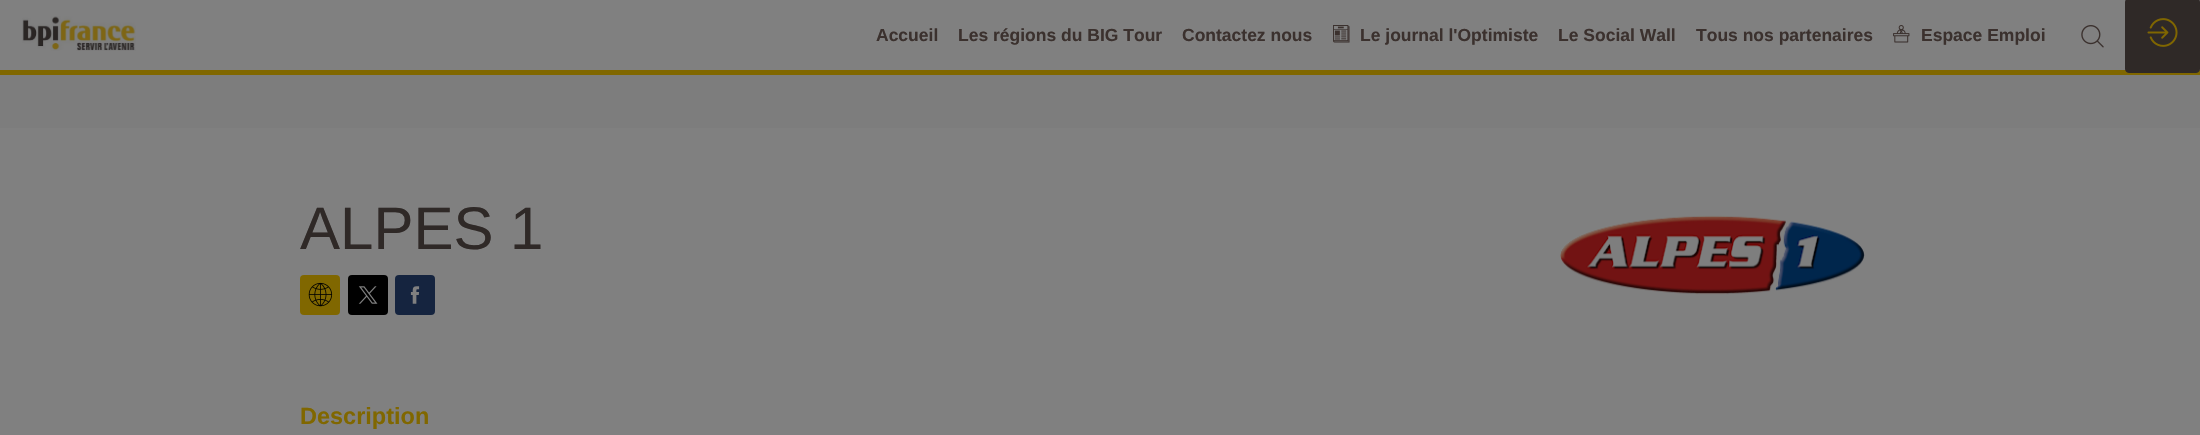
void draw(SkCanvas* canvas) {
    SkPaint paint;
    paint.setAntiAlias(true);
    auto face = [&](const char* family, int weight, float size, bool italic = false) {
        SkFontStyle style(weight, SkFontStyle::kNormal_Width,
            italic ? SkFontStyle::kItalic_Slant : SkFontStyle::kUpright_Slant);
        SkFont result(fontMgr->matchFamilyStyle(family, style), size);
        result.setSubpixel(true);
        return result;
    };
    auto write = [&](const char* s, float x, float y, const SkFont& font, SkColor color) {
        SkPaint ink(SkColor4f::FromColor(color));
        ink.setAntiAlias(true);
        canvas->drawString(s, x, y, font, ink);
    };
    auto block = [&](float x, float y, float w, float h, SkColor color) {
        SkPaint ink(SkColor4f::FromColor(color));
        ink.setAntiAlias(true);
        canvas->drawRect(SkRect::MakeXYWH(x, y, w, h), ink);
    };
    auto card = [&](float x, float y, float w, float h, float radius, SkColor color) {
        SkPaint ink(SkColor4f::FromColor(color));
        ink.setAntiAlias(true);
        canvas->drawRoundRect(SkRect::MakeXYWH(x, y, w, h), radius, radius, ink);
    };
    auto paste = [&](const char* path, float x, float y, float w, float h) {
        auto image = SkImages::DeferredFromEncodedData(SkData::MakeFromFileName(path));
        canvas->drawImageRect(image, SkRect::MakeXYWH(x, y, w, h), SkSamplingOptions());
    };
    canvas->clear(SkColorSetRGB(128, 128, 128));
    block(0, 70, 2200, 5, SkColorSetRGB(128, 103, 0));
    paste("pic1.png", 22, 16, 114, 35);
    auto kFont1 = face("Liberation Sans", 700, 17.5f);
    write("Accueil", 876, 41, kFont1, SkColorSetRGB(59, 49, 46));
    write("Les régions du BIG Tour", 958, 41, kFont1, SkColorSetRGB(59, 49, 46));
    write("Contactez nous", 1182, 41, kFont1, SkColorSetRGB(59, 49, 46));
    paste("pic2.png", 1333, 25, 17, 18);
    write("Le journal l'Optimiste", 1360, 41, kFont1, SkColorSetRGB(59, 49, 46));
    write("Le Social Wall", 1558, 41, kFont1, SkColorSetRGB(59, 49, 46));
    write("Tous nos partenaires", 1696, 41, kFont1, SkColorSetRGB(59, 49, 46));
    paste("pic3.png", 1893, 25, 17, 18);
    write("Espace Emploi", 1921, 41, kFont1, SkColorSetRGB(59, 49, 46));
    paste("pic4.png", 2081, 25, 23, 23);
    paint.setColor(SkColorSetRGB(47, 41, 39));
    canvas->drawRoundRect(SkRect::MakeXYWH(2125.5f, -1.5f, 74, 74), 3.5f, 3.5f, paint);
    paint.setStyle(SkPaint::kStroke_Style);
    paint.setStrokeWidth(1);
    canvas->drawRoundRect(SkRect::MakeXYWH(2125.5f, -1.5f, 74, 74), 3.5f, 3.5f, paint);
    paste("pic5.png", 2147, 18, 31, 29);
    block(0, 75, 2200, 53, SkColorSetRGB(125, 125, 125));
    auto kFont2 = face("Liberation Sans", 400, 60);
    write("ALPES 1", 300, 249, kFont2, SkColorSetRGB(47, 41, 39));
    card(300, 275, 40, 40, 4, SkColorSetRGB(128, 103, 0));
    paste("pic6.png", 308, 282, 25, 25);
    card(348, 275, 40, 40, 4, SK_ColorBLACK);
    paste("pic7.png", 358, 286, 20, 18);
    card(395, 275, 40, 40, 4, SkColorSetRGB(21, 36, 63));
    paste("pic8.png", 410, 286, 10, 18);
    paste("pic9.png", 1560, 215, 305, 80);
    auto kFont3 = face("Liberation Sans", 700, 23.5f);
    write("Description", 300, 424, kFont3, SkColorSetRGB(128, 103, 0));
}
